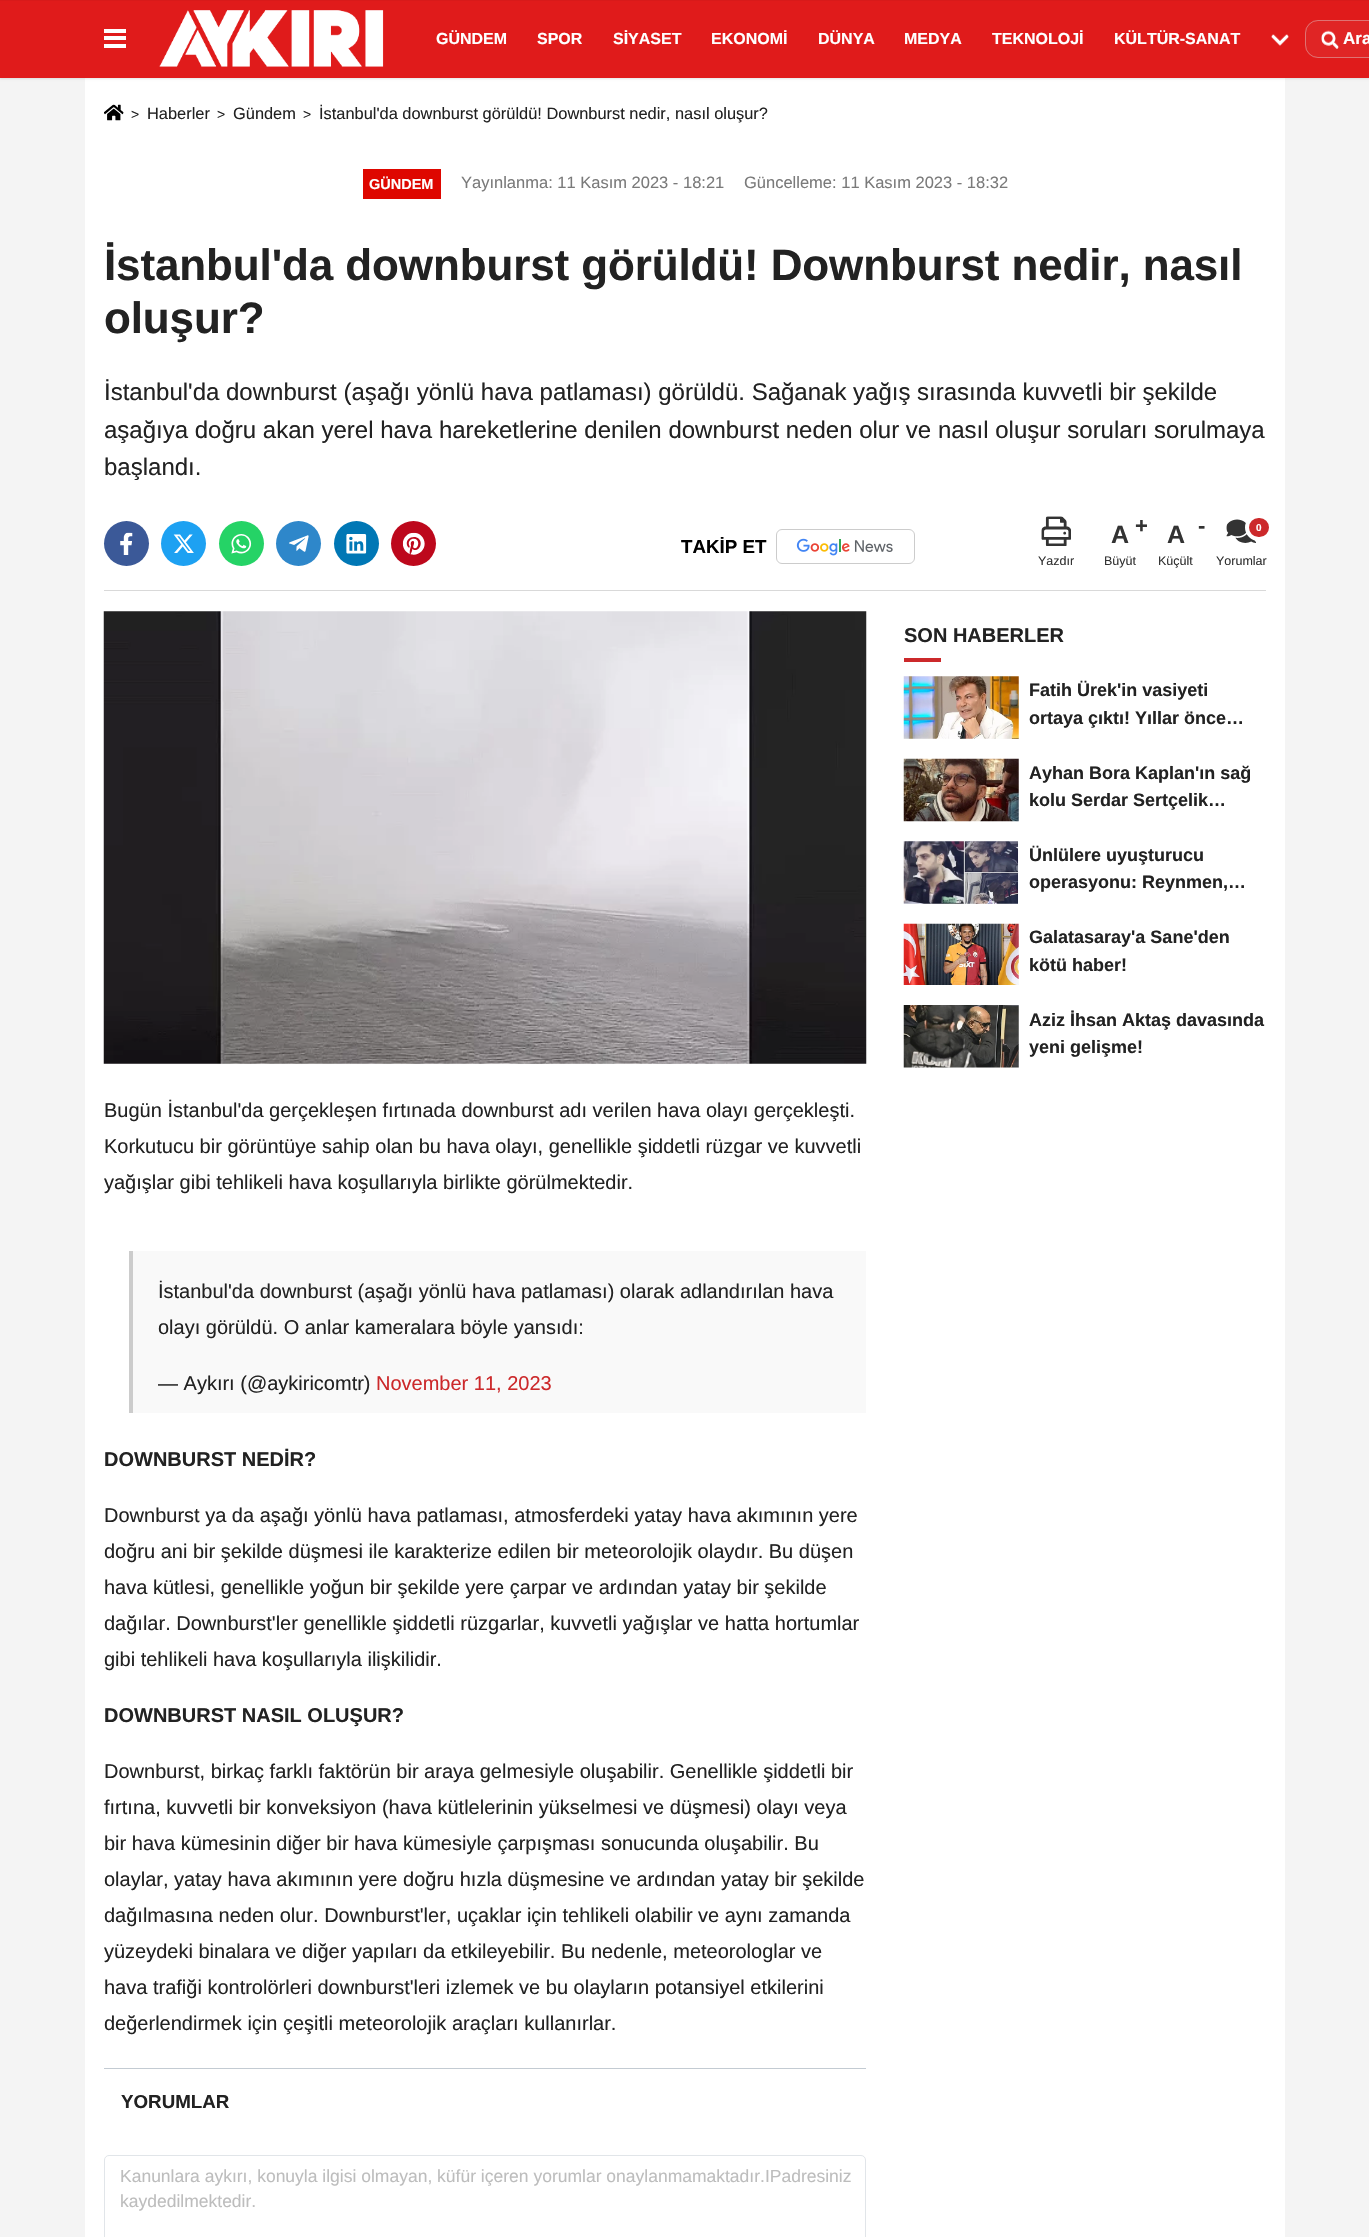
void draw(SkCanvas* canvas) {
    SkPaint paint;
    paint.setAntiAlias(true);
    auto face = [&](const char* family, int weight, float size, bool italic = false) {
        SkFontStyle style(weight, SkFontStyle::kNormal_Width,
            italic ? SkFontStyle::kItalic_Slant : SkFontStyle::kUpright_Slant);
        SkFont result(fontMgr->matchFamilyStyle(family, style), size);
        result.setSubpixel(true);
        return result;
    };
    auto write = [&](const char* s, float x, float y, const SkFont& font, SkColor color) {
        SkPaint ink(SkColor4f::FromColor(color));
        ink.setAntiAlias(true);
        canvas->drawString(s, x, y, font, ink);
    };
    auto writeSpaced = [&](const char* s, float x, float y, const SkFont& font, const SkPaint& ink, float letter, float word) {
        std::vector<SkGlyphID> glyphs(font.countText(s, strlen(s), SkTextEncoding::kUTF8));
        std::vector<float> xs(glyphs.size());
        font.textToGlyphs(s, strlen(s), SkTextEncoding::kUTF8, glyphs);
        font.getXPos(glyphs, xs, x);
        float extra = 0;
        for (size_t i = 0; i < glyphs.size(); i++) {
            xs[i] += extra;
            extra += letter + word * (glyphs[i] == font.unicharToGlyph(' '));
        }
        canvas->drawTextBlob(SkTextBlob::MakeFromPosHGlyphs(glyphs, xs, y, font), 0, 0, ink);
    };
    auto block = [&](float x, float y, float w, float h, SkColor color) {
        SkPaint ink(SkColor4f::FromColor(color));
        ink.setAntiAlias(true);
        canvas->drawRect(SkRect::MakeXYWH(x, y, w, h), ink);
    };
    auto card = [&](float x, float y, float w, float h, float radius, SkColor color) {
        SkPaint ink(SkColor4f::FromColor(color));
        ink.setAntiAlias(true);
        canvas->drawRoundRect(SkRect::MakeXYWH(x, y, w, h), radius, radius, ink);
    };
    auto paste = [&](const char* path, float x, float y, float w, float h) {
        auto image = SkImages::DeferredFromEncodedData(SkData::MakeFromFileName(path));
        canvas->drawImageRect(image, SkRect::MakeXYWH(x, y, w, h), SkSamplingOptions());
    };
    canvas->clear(SkColorSetRGB(244, 244, 244));
    block(0, 0, 1369, 1, SkColorSetRGB(217, 26, 26));
    block(85, 78, 1200, 2159, SK_ColorWHITE);
    paint.setColor(SkColorSetARGB(26, 0, 0, 0));
    paint.setMaskFilter(SkMaskFilter::MakeBlur(kNormal_SkBlurStyle, 1));
    canvas->drawRect(SkRect::MakeXYWH(0, 3, 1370, 76), paint);
    paint.setMaskFilter(nullptr);
    block(0, 1, 1369, 77, SkColorSetRGB(224, 27, 27));
    block(104, 29, 22, 4, SK_ColorWHITE);
    block(104, 36, 22, 4, SK_ColorWHITE);
    block(104, 44, 22, 4, SK_ColorWHITE);
    paste("pic1.png", 159, 10, 225, 57);
    auto kFont1 = face("Liberation Sans", 700, 16);
    write("GÜNDEM", 436, 44, kFont1, SK_ColorWHITE);
    write("SPOR", 537, 44, kFont1, SK_ColorWHITE);
    write("SİYASET", 613, 44, kFont1, SK_ColorWHITE);
    write("EKONOMİ", 711, 44, kFont1, SK_ColorWHITE);
    write("DÜNYA", 818, 44, kFont1, SK_ColorWHITE);
    write("MEDYA", 904, 44, kFont1, SK_ColorWHITE);
    write("TEKNOLOJİ", 992, 44, kFont1, SK_ColorWHITE);
    write("KÜLTÜR-SANAT", 1114, 44, kFont1, SK_ColorWHITE);
    paste("pic2.png", 1271, 34, 18, 12);
    card(1305, 20, 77, 38, 13, SkColorSetRGB(224, 37, 37));
    paint.setStyle(SkPaint::kStroke_Style);
    paint.setStrokeWidth(1);
    paint.setColor(SkColorSetARGB(107, 221, 221, 221));
    canvas->drawRoundRect(SkRect::MakeXYWH(1305.5f, 20.5f, 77, 37), 12.5f, 12.5f, paint);
    paste("pic3.png", 1321, 30, 18, 19);
    auto kFont2 = face("Liberation Sans", 700, 17);
    write("Ara", 1343, 44, kFont2, SK_ColorWHITE);
    paste("pic4.png", 104, 104, 20, 17);
    auto kFont3 = face("Liberation Sans", 400, 14);
    write(">", 131, 119, kFont3, SkColorSetRGB(34, 34, 34));
    auto kFont4 = face("Liberation Sans", 400, 16.4f);
    write("Haberler", 147, 119, kFont4, SkColorSetRGB(34, 34, 34));
    write(">", 217, 119, kFont3, SkColorSetRGB(34, 34, 34));
    write("Gündem", 233, 119, kFont4, SkColorSetRGB(34, 34, 34));
    write(">", 303, 119, kFont3, SkColorSetRGB(34, 34, 34));
    write("İstanbul'da downburst görüldü! Downburst nedir, nasıl oluşur?", 319, 119, kFont4, SkColorSetRGB(34, 34, 34));
    block(363, 169, 78, 30, SkColorSetRGB(222, 7, 0));
    auto kFont5 = face("Liberation Sans", 700, 14.5f);
    write("GÜNDEM", 369, 189, kFont5, SK_ColorWHITE);
    auto kFont6 = face("Liberation Sans", 400, 16.5f);
    write("Yayınlanma: 11 Kasım 2023 - 18:21", 461, 188, kFont6, SkColorSetRGB(122, 122, 122));
    write("Güncelleme: 11 Kasım 2023 - 18:32", 744, 188, kFont6, SkColorSetRGB(122, 122, 122));
    auto kFont7 = face("Liberation Sans", 700, 44);
    paint.setStyle(SkPaint::kFill_Style);
    paint.setColor(SkColorSetRGB(34, 34, 34));
    writeSpaced("İstanbul'da downburst görüldü! Downburst nedir, nasıl", 104, 280, kFont7, paint, -0.12f, 0);
    writeSpaced("oluşur?", 104, 333, kFont7, paint, -0.12f, 0);
    auto kFont8 = face("Liberation Sans", 400, 24);
    write("İstanbul'da downburst (aşağı yönlü hava patlaması) görüldü. Sağanak yağış sırasında kuvvetli bir şekilde", 104, 400, kFont8, SkColorSetRGB(34, 34, 34));
    write("aşağıya doğru akan yerel hava hareketlerine denilen downburst neden olur ve nasıl oluşur soruları sorulmaya", 104, 438, kFont8, SkColorSetRGB(34, 34, 34));
    write("başlandı.", 104, 475, kFont8, SkColorSetRGB(34, 34, 34));
    paint.setColor(SkColorSetRGB(59, 89, 152));
    canvas->drawCircle(126.5f, 543.5f, 22.5f, paint);
    paste("pic5.png", 120, 532, 13, 23);
    paint.setColor(SkColorSetRGB(29, 161, 242));
    canvas->drawCircle(183.5f, 543.5f, 22.5f, paint);
    paste("pic6.png", 173, 534, 21, 19);
    paint.setColor(SkColorSetRGB(37, 211, 102));
    canvas->drawCircle(241.5f, 543.5f, 22.5f, paint);
    paste("pic7.png", 231, 534, 21, 20);
    paint.setColor(SkColorSetRGB(46, 135, 202));
    canvas->drawCircle(298.5f, 543.5f, 22.5f, paint);
    paste("pic8.png", 289, 535, 20, 17);
    paint.setColor(SkColorSetRGB(0, 119, 181));
    canvas->drawCircle(356.5f, 543.5f, 22.5f, paint);
    paste("pic9.png", 346, 534, 21, 20);
    paint.setColor(SkColorSetRGB(189, 8, 28));
    canvas->drawCircle(413.5f, 543.5f, 22.5f, paint);
    paste("pic10.png", 402, 532, 23, 23);
    auto kFont9 = face("Liberation Sans", 700, 18.75f);
    write("TAKİP ET", 681, 553, kFont9, SK_ColorBLACK);
    paint.setStyle(SkPaint::kStroke_Style);
    paint.setColor(SkColorSetRGB(204, 204, 204));
    canvas->drawRoundRect(SkRect::MakeXYWH(776.5f, 529.5f, 138, 34), 5.5f, 5.5f, paint);
    paste("pic11.png", 796, 538, 97, 18);
    paste("pic12.png", 1041, 516, 30, 30);
    auto kFont10 = face("Liberation Sans", 400, 12.5f);
    write("Yazdır", 1038, 565, kFont10, SkColorSetRGB(51, 51, 51));
    auto kFont11 = face("Liberation Sans", 700, 25);
    write("A", 1111, 543, kFont11, SkColorSetRGB(51, 51, 51));
    auto kFont12 = face("Liberation Sans", 700, 22);
    write("+", 1135, 533, kFont12, SkColorSetRGB(51, 51, 51));
    write("Büyüt", 1104, 565, kFont10, SkColorSetRGB(51, 51, 51));
    write("A", 1167, 543, kFont11, SkColorSetRGB(51, 51, 51));
    write("-", 1198, 533, kFont12, SkColorSetRGB(51, 51, 51));
    write("Küçült", 1158, 565, kFont10, SkColorSetRGB(51, 51, 51));
    paste("pic13.png", 1226, 519, 30, 24);
    paint.setStyle(SkPaint::kFill_Style);
    paint.setColor(SkColorSetRGB(204, 41, 43));
    canvas->drawRoundRect(SkRect::MakeXYWH(1247, 516, 24, 23), 11.5f, 11.5f, paint);
    paint.setStyle(SkPaint::kStroke_Style);
    paint.setStrokeWidth(4);
    paint.setColor(SK_ColorWHITE);
    canvas->drawRoundRect(SkRect::MakeXYWH(1247, 516, 24, 23), 11.5f, 11.5f, paint);
    auto kFont13 = face("Liberation Sans", 700, 10);
    write("0", 1256, 531, kFont13, SK_ColorWHITE);
    write("Yorumlar", 1216, 565, kFont10, SkColorSetRGB(51, 51, 51));
    block(104, 590, 1162, 1, SkColorSetRGB(217, 217, 217));
    auto kFont14 = face("Liberation Sans", 700, 20);
    write("SON HABERLER", 904, 642, kFont14, SkColorSetRGB(34, 34, 34));
    block(904, 658, 37, 4, SkColorSetRGB(204, 41, 43));
    paste("pic14.png", 903, 676, 116, 63);
    auto kFont15 = face("Liberation Sans", 700, 18);
    write("Fatih Ürek'in vasiyeti", 1029, 696, kFont15, SkColorSetRGB(34, 34, 34));
    write("ortaya çıktı! Yıllar önce…", 1029, 724, kFont15, SkColorSetRGB(34, 34, 34));
    paste("pic15.png", 903, 758, 116, 64);
    write("Ayhan Bora Kaplan'ın sağ", 1029, 779, kFont15, SkColorSetRGB(34, 34, 34));
    write("kolu Serdar Sertçelik…", 1029, 806, kFont15, SkColorSetRGB(34, 34, 34));
    paste("pic16.png", 903, 841, 116, 63);
    write("Ünlülere uyuşturucu", 1029, 861, kFont15, SkColorSetRGB(34, 34, 34));
    write("operasyonu: Reynmen,…", 1029, 888, kFont15, SkColorSetRGB(34, 34, 34));
    paste("pic17.png", 903, 923, 116, 62);
    write("Galatasaray'a Sane'den", 1029, 943, kFont15, SkColorSetRGB(34, 34, 34));
    write("kötü haber!", 1029, 971, kFont15, SkColorSetRGB(34, 34, 34));
    paste("pic18.png", 903, 1005, 116, 63);
    write("Aziz İhsan Aktaş davasında", 1029, 1026, kFont15, SkColorSetRGB(34, 34, 34));
    write("yeni gelişme!", 1029, 1053, kFont15, SkColorSetRGB(34, 34, 34));
    paste("pic19.png", 103, 611, 764, 453);
    auto kFont16 = face("Liberation Sans", 400, 20);
    write("Bugün İstanbul'da gerçekleşen fırtınada downburst adı verilen hava olayı gerçekleşti.", 104, 1117, kFont16, SkColorSetRGB(34, 34, 34));
    write("Korkutucu bir görüntüye sahip olan bu hava olayı, genellikle şiddetli rüzgar ve kuvvetli", 104, 1153, kFont16, SkColorSetRGB(34, 34, 34));
    write("yağışlar gibi tehlikeli hava koşullarıyla birlikte görülmektedir.", 104, 1189, kFont16, SkColorSetRGB(34, 34, 34));
    block(133, 1251, 733, 162, SkColorSetRGB(249, 249, 249));
    block(129, 1251, 4, 162, SkColorSetRGB(204, 204, 204));
    write("İstanbul'da downburst (aşağı yönlü hava patlaması) olarak adlandırılan hava", 158, 1298, kFont16, SkColorSetRGB(34, 34, 34));
    write("olayı görüldü. O anlar kameralara böyle yansıdı:", 158, 1334, kFont16, SkColorSetRGB(34, 34, 34));
    write("— Aykırı (@aykiricomtr)", 158, 1390, kFont16, SkColorSetRGB(34, 34, 34));
    write("November 11, 2023", 376, 1390, kFont16, SkColorSetRGB(204, 41, 43));
    write("DOWNBURST NEDİR?", 104, 1466, kFont14, SkColorSetRGB(34, 34, 34));
    write("Downburst ya da aşağı yönlü hava patlaması, atmosferdeki yatay hava akımının yere", 104, 1522, kFont16, SkColorSetRGB(34, 34, 34));
    write("doğru ani bir şekilde düşmesi ile karakterize edilen bir meteorolojik olaydır. Bu düşen", 104, 1558, kFont16, SkColorSetRGB(34, 34, 34));
    write("hava kütlesi, genellikle yoğun bir şekilde yere çarpar ve ardından yatay bir şekilde", 104, 1594, kFont16, SkColorSetRGB(34, 34, 34));
    write("dağılar. Downburst'ler genellikle şiddetli rüzgarlar, kuvvetli yağışlar ve hatta hortumlar", 104, 1630, kFont16, SkColorSetRGB(34, 34, 34));
    write("gibi tehlikeli hava koşullarıyla ilişkilidir.", 104, 1666, kFont16, SkColorSetRGB(34, 34, 34));
    write("DOWNBURST NASIL OLUŞUR?", 104, 1722, kFont14, SkColorSetRGB(34, 34, 34));
    write("Downburst, birkaç farklı faktörün bir araya gelmesiyle oluşabilir. Genellikle şiddetli bir", 104, 1778, kFont16, SkColorSetRGB(34, 34, 34));
    write("fırtına, kuvvetli bir konveksiyon (hava kütlelerinin yükselmesi ve düşmesi) olayı veya", 104, 1814, kFont16, SkColorSetRGB(34, 34, 34));
    write("bir hava kümesinin diğer bir hava kümesiyle çarpışması sonucunda oluşabilir. Bu", 104, 1850, kFont16, SkColorSetRGB(34, 34, 34));
    write("olaylar, yatay hava akımının yere doğru hızla düşmesine ve ardından yatay bir şekilde", 104, 1886, kFont16, SkColorSetRGB(34, 34, 34));
    write("dağılmasına neden olur. Downburst'ler, uçaklar için tehlikeli olabilir ve aynı zamanda", 104, 1922, kFont16, SkColorSetRGB(34, 34, 34));
    write("yüzeydeki binalara ve diğer yapıları da etkileyebilir. Bu nedenle, meteorologlar ve", 104, 1958, kFont16, SkColorSetRGB(34, 34, 34));
    write("hava trafiği kontrolörleri downburst'leri izlemek ve bu olayların potansiyel etkilerini", 104, 1994, kFont16, SkColorSetRGB(34, 34, 34));
    write("değerlendirmek için çeşitli meteorolojik araçları kullanırlar.", 104, 2030, kFont16, SkColorSetRGB(34, 34, 34));
    block(104, 2068, 762, 1, SkColorSetRGB(195, 203, 210));
    write("YORUMLAR", 121, 2108, kFont9, SkColorSetRGB(34, 34, 34));
    paint.setStrokeWidth(1);
    paint.setColor(SkColorSetRGB(225, 229, 233));
    canvas->drawRoundRect(SkRect::MakeXYWH(104.5f, 2155.5f, 761, 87), 4.5f, 4.5f, paint);
    auto kFont17 = face("Liberation Sans", 400, 17.5f);
    write("Kanunlara aykırı, konuyla ilgisi olmayan, küfür içeren yorumlar onaylanmamaktadır.IPadresiniz", 120, 2182, kFont17, SkColorSetRGB(189, 189, 189));
    write("kaydedilmektedir.", 120, 2207, kFont17, SkColorSetRGB(189, 189, 189));
}
